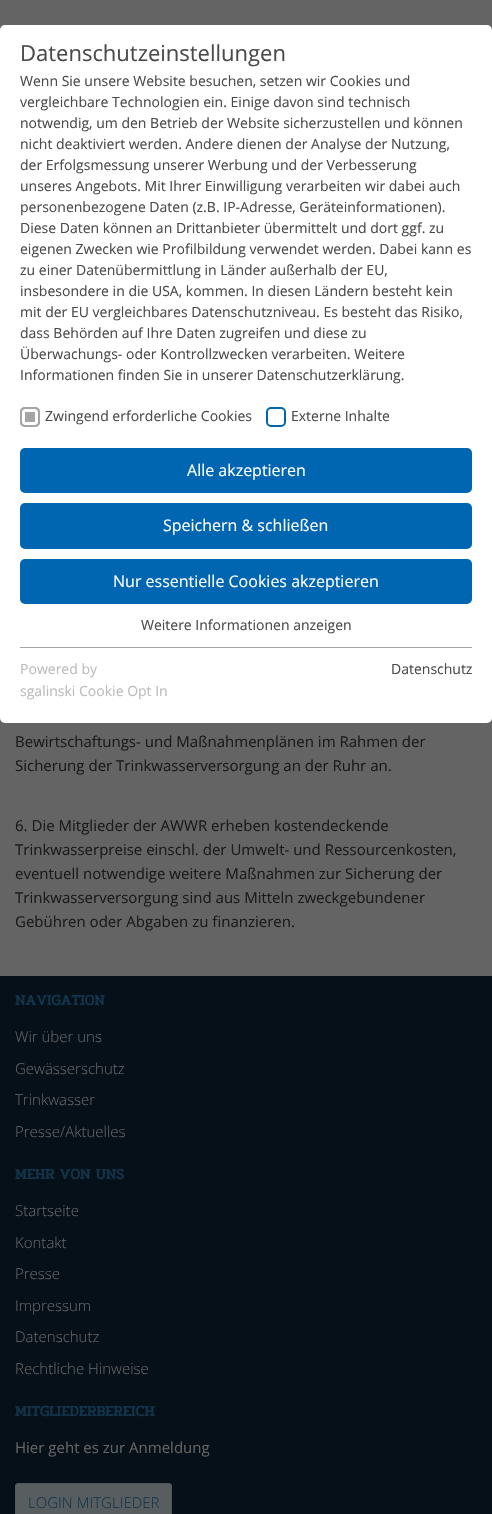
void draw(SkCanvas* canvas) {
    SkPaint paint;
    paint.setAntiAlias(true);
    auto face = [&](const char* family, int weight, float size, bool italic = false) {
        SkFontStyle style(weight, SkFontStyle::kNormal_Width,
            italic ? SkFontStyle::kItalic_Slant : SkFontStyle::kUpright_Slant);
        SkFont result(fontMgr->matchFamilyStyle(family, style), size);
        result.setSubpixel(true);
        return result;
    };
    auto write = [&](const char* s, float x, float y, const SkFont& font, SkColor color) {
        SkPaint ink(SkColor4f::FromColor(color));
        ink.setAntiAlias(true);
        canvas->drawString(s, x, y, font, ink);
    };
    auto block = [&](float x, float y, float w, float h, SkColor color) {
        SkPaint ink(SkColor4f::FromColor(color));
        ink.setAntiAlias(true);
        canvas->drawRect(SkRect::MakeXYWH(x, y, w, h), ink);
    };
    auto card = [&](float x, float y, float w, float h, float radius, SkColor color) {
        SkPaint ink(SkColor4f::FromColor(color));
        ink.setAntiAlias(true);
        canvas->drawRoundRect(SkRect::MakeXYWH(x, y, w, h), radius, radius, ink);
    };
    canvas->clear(SkColorSetRGB(100, 100, 100));
    card(0, 25, 492, 698, 5, SK_ColorWHITE);
    auto kFont1 = face("Open Sans", 400, 22);
    write("Datenschutzeinstellungen", 20, 61, kFont1, SkColorSetRGB(74, 74, 74));
    auto kFont2 = face("Open Sans", 400, 14);
    write("Wenn Sie unsere Website besuchen, setzen wir Cookies und", 20, 86, kFont2, SkColorSetRGB(74, 74, 74));
    write("vergleichbare Technologien ein. Einige davon sind technisch", 20, 107, kFont2, SkColorSetRGB(74, 74, 74));
    write("notwendig, um den Betrieb der Website sicherzustellen und können", 20, 128, kFont2, SkColorSetRGB(74, 74, 74));
    write("nicht deaktiviert werden. Andere dienen der Analyse der Nutzung,", 20, 149, kFont2, SkColorSetRGB(74, 74, 74));
    write("der Erfolgsmessung unserer Werbung und der Verbesserung", 20, 170, kFont2, SkColorSetRGB(74, 74, 74));
    write("unseres Angebots. Mit Ihrer Einwilligung verarbeiten wir dabei auch", 20, 191, kFont2, SkColorSetRGB(74, 74, 74));
    write("personenbezogene Daten (z. B. IP-Adresse, Geräteinformationen).", 20, 212, kFont2, SkColorSetRGB(74, 74, 74));
    write("Diese Daten können an Drittanbieter übermittelt und dort ggf. zu", 20, 233, kFont2, SkColorSetRGB(74, 74, 74));
    write("eigenen Zwecken wie Profilbildung verwendet werden. Dabei kann es", 20, 254, kFont2, SkColorSetRGB(74, 74, 74));
    write("zu einer Datenübermittlung in Länder außerhalb der EU,", 20, 275, kFont2, SkColorSetRGB(74, 74, 74));
    write("insbesondere in die USA, kommen. In diesen Ländern besteht kein", 20, 296, kFont2, SkColorSetRGB(74, 74, 74));
    write("mit der EU vergleichbares Datenschutzniveau. Es besteht das Risiko,", 20, 317, kFont2, SkColorSetRGB(74, 74, 74));
    write("dass Behörden auf Ihre Daten zugreifen und diese zu", 20, 338, kFont2, SkColorSetRGB(74, 74, 74));
    write("Überwachungs- oder Kontrollzwecken verarbeiten. Weitere", 20, 359, kFont2, SkColorSetRGB(74, 74, 74));
    write("Informationen finden Sie in unserer Datenschutzerklärung.", 20, 380, kFont2, SkColorSetRGB(74, 74, 74));
    card(20, 407, 20, 20, 5, SkColorSetRGB(165, 165, 165));
    paint.setStyle(SkPaint::kStroke_Style);
    paint.setStrokeWidth(3);
    paint.setColor(SK_ColorWHITE);
    canvas->drawRoundRect(SkRect::MakeXYWH(23.5f, 410.5f, 13, 13), 1.5f, 1.5f, paint);
    paint.setStrokeWidth(2);
    paint.setColor(SkColorSetRGB(165, 165, 165));
    canvas->drawRoundRect(SkRect::MakeXYWH(21, 408, 18, 18), 4, 4, paint);
    write("Zwingend erforderliche Cookies", 45, 421, kFont2, SkColorSetRGB(74, 74, 74));
    paint.setColor(SkColorSetRGB(0, 102, 178));
    canvas->drawRoundRect(SkRect::MakeXYWH(267, 408, 18, 18), 4, 4, paint);
    write("Externe Inhalte", 291, 421, kFont2, SkColorSetRGB(74, 74, 74));
    card(20, 448, 452, 45, 5, SkColorSetRGB(0, 102, 178));
    auto kFont3 = face("Open Sans", 400, 16);
    write("Alle akzeptieren", 187, 476, kFont3, SK_ColorWHITE);
    card(20, 503, 452, 46, 5, SkColorSetRGB(0, 102, 178));
    write("Speichern & schließen", 163, 531, kFont3, SK_ColorWHITE);
    card(20, 559, 452, 45, 5, SkColorSetRGB(0, 102, 178));
    write("Nur essentielle Cookies akzeptieren", 113, 587, kFont3, SK_ColorWHITE);
    write("Weitere Informationen anzeigen", 141, 630, kFont2, SkColorSetRGB(74, 74, 74));
    block(20, 647, 452, 1, SkColorSetRGB(165, 165, 165));
    write("Powered by", 20, 674, kFont2, SkColorSetRGB(187, 187, 187));
    write("sgalinski Cookie Opt In", 20, 696, kFont2, SkColorSetRGB(187, 187, 187));
    write("Datenschutz", 391, 674, kFont2, SkColorSetRGB(74, 74, 74));
    auto kFont4 = face("Open Sans", 400, 15);
    write("Bewirtschaftungs- und Maßnahmenplänen im Rahmen der", 15, 747, kFont4, SkColorSetRGB(26, 26, 28));
    write("Sicherung der Trinkwasserversorgung an der Ruhr an.", 15, 771, kFont4, SkColorSetRGB(26, 26, 28));
    write("6. Die Mitglieder der AWWR erheben kostendeckende", 15, 831, kFont4, SkColorSetRGB(26, 26, 28));
    write("Trinkwasserpreise einschl. der Umwelt- und Ressourcenkosten,", 15, 855, kFont4, SkColorSetRGB(26, 26, 28));
    write("eventuell notwendige weitere Maßnahmen zur Sicherung der", 15, 879, kFont4, SkColorSetRGB(26, 26, 28));
    write("Trinkwasserversorgung sind aus Mitteln zweckgebundener", 15, 903, kFont4, SkColorSetRGB(26, 26, 28));
    write("Gebühren oder Abgaben zu finanzieren.", 15, 927, kFont4, SkColorSetRGB(26, 26, 28));
    block(0, 976, 492, 538, SkColorSetRGB(6, 16, 24));
    auto kFont5 = face("Pridi", 700, 15);
    write("NAVIGATION", 15, 1005, kFont5, SkColorSetRGB(18, 52, 75));
    auto kFont6 = face("Open Sans", 300, 15);
    write("Wir über uns", 15, 1042, kFont6, SkColorSetRGB(100, 100, 100));
    write("Gewässerschutz", 15, 1074, kFont6, SkColorSetRGB(100, 100, 100));
    write("Trinkwasser", 15, 1105, kFont6, SkColorSetRGB(100, 100, 100));
    write("Presse/Aktuelles", 15, 1137, kFont6, SkColorSetRGB(100, 100, 100));
    write("MEHR VON UNS", 15, 1179, kFont5, SkColorSetRGB(18, 52, 75));
    write("Startseite", 15, 1216, kFont6, SkColorSetRGB(100, 100, 100));
    write("Kontakt", 15, 1248, kFont6, SkColorSetRGB(100, 100, 100));
    write("Presse", 15, 1279, kFont6, SkColorSetRGB(100, 100, 100));
    write("Impressum", 15, 1311, kFont6, SkColorSetRGB(100, 100, 100));
    write("Datenschutz", 15, 1342, kFont6, SkColorSetRGB(100, 100, 100));
    write("Rechtliche Hinweise", 15, 1374, kFont6, SkColorSetRGB(100, 100, 100));
    write("MITGLIEDERBEREICH", 15, 1416, kFont5, SkColorSetRGB(18, 52, 75));
    write("Hier geht es zur Anmeldung", 15, 1453, kFont4, SkColorSetRGB(100, 100, 100));
    paint.setStyle(SkPaint::kFill_Style);
    paint.setColor(SkColorSetRGB(88, 93, 96));
    canvas->drawRoundRect(SkRect::MakeXYWH(15.5f, 1483.5f, 156, 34), 2.5f, 2.5f, paint);
    paint.setStyle(SkPaint::kStroke_Style);
    paint.setStrokeWidth(1);
    paint.setColor(SkColorSetRGB(81, 88, 93));
    canvas->drawRoundRect(SkRect::MakeXYWH(15.5f, 1483.5f, 156, 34), 2.5f, 2.5f, paint);
    write("LOGIN MITGLIEDER", 28, 1508, kFont6, SkColorSetRGB(18, 52, 75));
}
